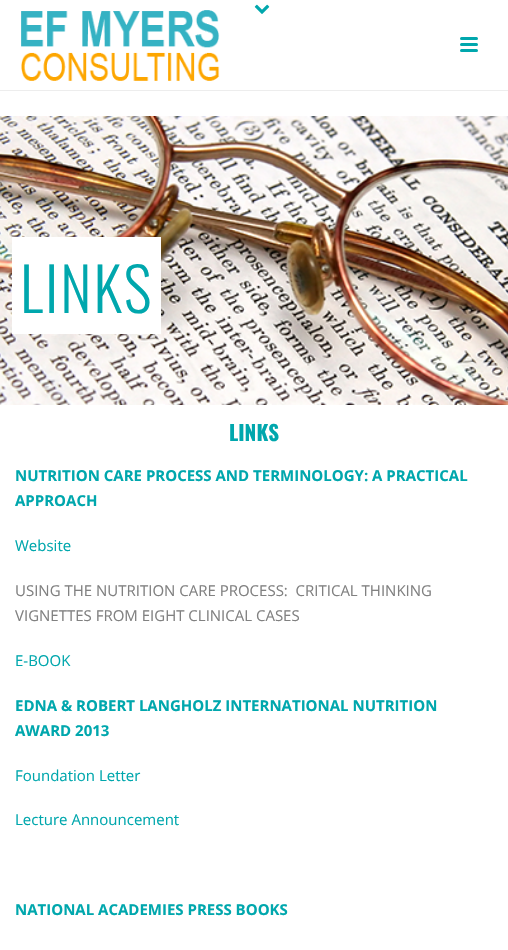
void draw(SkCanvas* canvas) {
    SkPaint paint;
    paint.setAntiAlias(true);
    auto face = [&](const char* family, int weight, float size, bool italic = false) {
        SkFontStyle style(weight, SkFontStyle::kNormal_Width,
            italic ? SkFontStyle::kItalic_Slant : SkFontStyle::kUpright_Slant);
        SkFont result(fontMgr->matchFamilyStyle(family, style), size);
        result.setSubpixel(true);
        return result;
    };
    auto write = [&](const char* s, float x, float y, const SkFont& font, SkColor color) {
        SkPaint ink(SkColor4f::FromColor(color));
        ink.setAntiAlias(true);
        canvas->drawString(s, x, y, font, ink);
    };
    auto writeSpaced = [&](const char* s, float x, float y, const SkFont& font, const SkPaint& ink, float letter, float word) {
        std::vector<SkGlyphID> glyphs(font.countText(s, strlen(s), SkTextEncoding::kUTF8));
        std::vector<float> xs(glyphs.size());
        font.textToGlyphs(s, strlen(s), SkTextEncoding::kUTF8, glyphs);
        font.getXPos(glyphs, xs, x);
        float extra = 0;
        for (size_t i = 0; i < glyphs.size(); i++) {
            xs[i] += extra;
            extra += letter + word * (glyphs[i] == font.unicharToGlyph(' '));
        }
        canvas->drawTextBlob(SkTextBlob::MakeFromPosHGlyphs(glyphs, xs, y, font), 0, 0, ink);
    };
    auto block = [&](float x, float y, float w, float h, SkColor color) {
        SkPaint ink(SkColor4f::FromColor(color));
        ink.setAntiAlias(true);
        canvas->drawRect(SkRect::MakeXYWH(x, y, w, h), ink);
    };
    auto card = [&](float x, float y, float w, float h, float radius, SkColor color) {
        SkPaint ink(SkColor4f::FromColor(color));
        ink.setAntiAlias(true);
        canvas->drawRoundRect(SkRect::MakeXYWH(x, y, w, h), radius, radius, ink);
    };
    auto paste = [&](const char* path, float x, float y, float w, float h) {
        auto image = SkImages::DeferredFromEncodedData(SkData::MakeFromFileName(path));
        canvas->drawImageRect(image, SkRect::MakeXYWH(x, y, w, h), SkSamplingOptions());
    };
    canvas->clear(SK_ColorWHITE);
    block(0, 90, 508, 1, SkColorSetRGB(237, 237, 237));
    paste("pic1.png", 254, 4, 16, 10);
    paste("pic2.png", 21, 10, 199, 71);
    card(460, 37, 18, 3, 1.5f, SkColorSetRGB(0, 167, 173));
    card(460, 43, 18, 3, 1.5f, SkColorSetRGB(0, 167, 173));
    card(460, 49, 18, 3, 1.5f, SkColorSetRGB(0, 167, 173));
    paste("pic3.png", 0, 116, 508, 289);
    block(20, 237, 141, 97, SK_ColorWHITE);
    auto kFont1 = face("Oswald", 300, 60);
    paint.setColor(SkColorSetRGB(0, 167, 173));
    writeSpaced("LINKS", 20, 313, kFont1, paint, 2, 0);
    block(12, 237, 8, 97, SK_ColorWHITE);
    auto kFont2 = face("Oswald", 700, 21);
    write("LINKS", 229, 441, kFont2, SkColorSetRGB(0, 167, 173));
    auto kFont3 = face("Open Sans", 700, 15);
    write("NUTRITION CARE PROCESS AND TERMINOLOGY: A PRACTICAL", 15, 481, kFont3, SkColorSetRGB(0, 167, 173));
    write("APPROACH", 15, 506, kFont3, SkColorSetRGB(0, 167, 173));
    auto kFont4 = face("Open Sans", 400, 15);
    write("Website", 15, 551, kFont4, SkColorSetRGB(0, 167, 173));
    write("USING THE NUTRITION CARE PROCESS:  CRITICAL THINKING", 15, 596, kFont4, SkColorSetRGB(129, 129, 129));
    write("VIGNETTES FROM EIGHT CLINICAL CASES", 15, 621, kFont4, SkColorSetRGB(129, 129, 129));
    write("E-BOOK", 15, 666, kFont4, SkColorSetRGB(0, 167, 173));
    write("EDNA & ROBERT LANGHOLZ INTERNATIONAL NUTRITION", 15, 711, kFont3, SkColorSetRGB(0, 167, 173));
    write("AWARD 2013", 15, 736, kFont3, SkColorSetRGB(0, 167, 173));
    write("Foundation Letter", 15, 781, kFont4, SkColorSetRGB(0, 167, 173));
    write("Lecture Announcement", 15, 825, kFont4, SkColorSetRGB(0, 167, 173));
    write("NATIONAL ACADEMIES PRESS BOOKS", 15, 915, kFont3, SkColorSetRGB(0, 167, 173));
}
